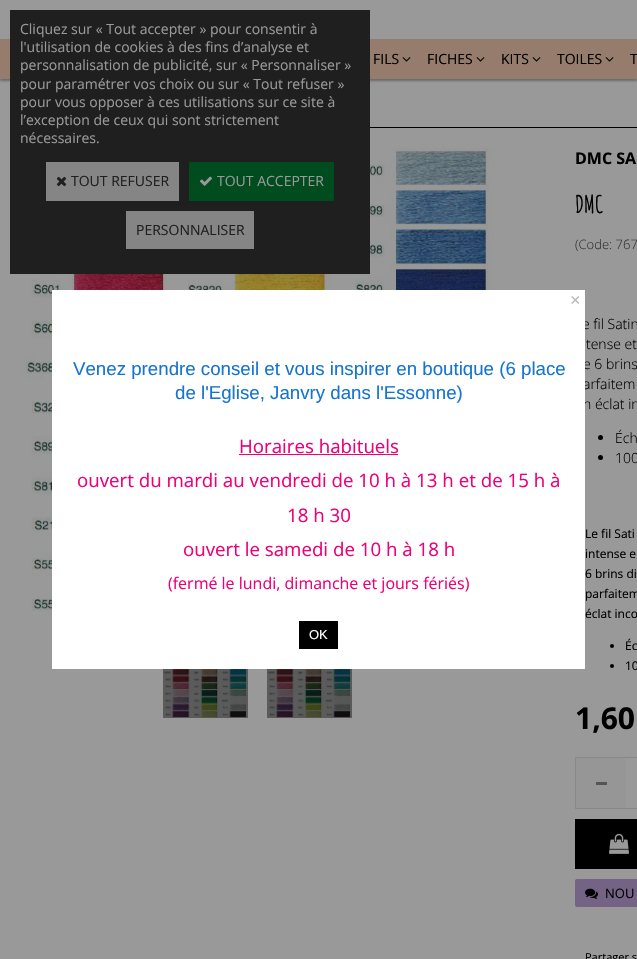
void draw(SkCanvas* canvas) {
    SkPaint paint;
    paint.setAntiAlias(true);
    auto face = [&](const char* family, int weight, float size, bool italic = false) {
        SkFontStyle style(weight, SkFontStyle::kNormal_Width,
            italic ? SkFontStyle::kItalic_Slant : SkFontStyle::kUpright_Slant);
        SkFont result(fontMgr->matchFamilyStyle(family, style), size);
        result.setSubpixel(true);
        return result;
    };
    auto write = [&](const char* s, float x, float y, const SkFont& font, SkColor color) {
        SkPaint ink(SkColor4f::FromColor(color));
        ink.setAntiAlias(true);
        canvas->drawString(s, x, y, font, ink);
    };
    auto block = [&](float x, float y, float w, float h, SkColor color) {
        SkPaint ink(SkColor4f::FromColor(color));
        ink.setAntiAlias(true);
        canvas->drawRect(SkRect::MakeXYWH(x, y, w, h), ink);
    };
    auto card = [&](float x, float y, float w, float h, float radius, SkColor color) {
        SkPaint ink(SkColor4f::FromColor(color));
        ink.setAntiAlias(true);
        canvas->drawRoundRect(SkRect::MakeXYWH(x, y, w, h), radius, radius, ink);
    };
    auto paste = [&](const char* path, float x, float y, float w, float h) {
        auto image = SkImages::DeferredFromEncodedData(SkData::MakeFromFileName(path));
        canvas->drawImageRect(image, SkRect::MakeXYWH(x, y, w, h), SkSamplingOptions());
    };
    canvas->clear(SkColorSetRGB(153, 153, 153));
    paint.setColor(SkColorSetARGB(77, 0, 0, 0));
    paint.setMaskFilter(SkMaskFilter::MakeBlur(kNormal_SkBlurStyle, 1));
    canvas->drawRect(SkRect::MakeXYWH(0, 41, 637, 40), paint);
    paint.setMaskFilter(nullptr);
    block(0, 39, 637, 40, SkColorSetRGB(149, 124, 108));
    paste("pic4.png", 20, 148, 475, 474);
    block(10, 10, 360, 264, SkColorSetRGB(31, 31, 31));
    auto kFont1 = face("Open Sans", 400, 14);
    write("Cliquez sur « Tout accepter » pour consentir à", 20, 34, kFont1, SkColorSetRGB(153, 153, 153));
    write("l'utilisation de cookies à des fins d’analyse et", 20, 52, kFont1, SkColorSetRGB(153, 153, 153));
    write("personnalisation de publicité, sur « Personnaliser »", 20, 70, kFont1, SkColorSetRGB(153, 153, 153));
    write("pour paramétrer vos choix ou sur « Tout refuser »", 20, 89, kFont1, SkColorSetRGB(153, 153, 153));
    write("pour vous opposer à ces utilisations sur ce site à", 20, 107, kFont1, SkColorSetRGB(153, 153, 153));
    write("l’exception de ceux qui sont strictement", 20, 125, kFont1, SkColorSetRGB(153, 153, 153));
    write("nécessaires.", 20, 143, kFont1, SkColorSetRGB(153, 153, 153));
    block(46, 162, 133, 39, SkColorSetRGB(133, 133, 133));
    paste("pic1.png", 56, 176, 11, 11);
    write("TOUT REFUSER", 71, 186, kFont1, SkColorSetRGB(31, 31, 31));
    block(189, 162, 145, 39, SkColorSetRGB(0, 76, 31));
    paste("pic2.png", 200, 176, 12, 10);
    write("TOUT ACCEPTER", 217, 186, kFont1, SkColorSetRGB(153, 153, 153));
    block(126, 211, 128, 38, SkColorSetRGB(133, 133, 133));
    write("PERSONNALISER", 136, 235, kFont1, SkColorSetRGB(31, 31, 31));
    write("FILS", 373, 64, kFont1, SK_ColorBLACK);
    paste("pic3.png", 402, 57, 9, 5);
    write("FICHES", 427, 64, kFont1, SK_ColorBLACK);
    paste("pic3.png", 476, 57, 9, 5);
    write("KITS", 501, 64, kFont1, SK_ColorBLACK);
    paste("pic3.png", 532, 57, 9, 5);
    write("TOILES", 557, 64, kFont1, SK_ColorBLACK);
    paste("pic3.png", 605, 57, 9, 5);
    write("T", 630, 64, kFont1, SK_ColorBLACK);
    block(370, 127, 267, 1, SK_ColorBLACK);
    paste("pic5.png", 163, 669, 85, 49);
    paste("pic5.png", 267, 669, 85, 49);
    auto kFont2 = face("Open Sans", 700, 16);
    write("DMC SA", 575, 164, kFont2, SK_ColorBLACK);
    auto kFont3 = face("Amatic SC", 700, 24);
    write("DMC", 575, 213, kFont3, SK_ColorBLACK);
    auto kFont4 = face("Open Sans", 300, 13);
    write("(Code: 767", 575, 249, kFont4, SkColorSetRGB(51, 51, 51));
    auto kFont5 = face("Open Sans", 300, 14);
    write("e fil Satin", 582, 329, kFont5, SK_ColorBLACK);
    write("tense et", 586, 349, kFont5, SK_ColorBLACK);
    write("e 6 brins", 583, 369, kFont5, SK_ColorBLACK);
    write("arfaitem", 583, 389, kFont5, SK_ColorBLACK);
    write("n éclat in", 583, 409, kFont5, SK_ColorBLACK);
    paint.setColor(SK_ColorBLACK);
    canvas->drawCircle(600.5f, 437.5f, 2.5f, paint);
    write("Éch", 615, 443, kFont5, SK_ColorBLACK);
    canvas->drawCircle(600.5f, 457.5f, 2.5f, paint);
    write("100", 615, 463, kFont5, SK_ColorBLACK);
    auto kFont6 = face("Open Sans", 400, 12);
    write("Le fil Sati", 585, 538, kFont6, SK_ColorBLACK);
    write("intense e", 585, 558, kFont6, SK_ColorBLACK);
    write("6 brins di", 585, 578, kFont6, SK_ColorBLACK);
    write("parfaitem", 585, 598, kFont6, SK_ColorBLACK);
    write("éclat inco", 585, 618, kFont6, SK_ColorBLACK);
    canvas->drawCircle(612, 646, 2, paint);
    write("Éc", 625, 650, kFont6, SK_ColorBLACK);
    canvas->drawCircle(612, 666, 2, paint);
    write("10", 625, 670, kFont6, SK_ColorBLACK);
    auto kFont7 = face("Open Sans", 700, 30);
    write("1,60", 575, 729, kFont7, SK_ColorBLACK);
    paint.setStyle(SkPaint::kStroke_Style);
    paint.setStrokeWidth(1);
    paint.setColor(SkColorSetRGB(136, 136, 136));
    canvas->drawRect(SkRect::MakeXYWH(575.5f, 757.5f, 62, 51), paint);
    block(576, 758, 50, 50, SkColorSetRGB(150, 150, 150));
    block(596, 782, 11, 3, SkColorSetRGB(85, 85, 85));
    block(575, 819, 62, 50, SK_ColorBLACK);
    paste("pic6.png", 609, 833, 20, 21);
    card(575, 879, 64, 28, 2, SkColorSetRGB(117, 99, 133));
    paste("pic7.png", 585, 888, 13, 11);
    auto kFont8 = face("Open Sans", 400, 13);
    write("NOU", 605, 898, kFont8, SK_ColorBLACK);
    auto kFont9 = face("Open Sans", 400, 11);
    write("Partager s", 585, 961, kFont9, SK_ColorBLACK);
    block(52, 290, 533, 379, SK_ColorWHITE);
    auto kFont10 = face("Liberation Sans", 400, 18);
    write("×", 570, 306, kFont10, SkColorSetRGB(187, 187, 187));
    auto kFont11 = face("Liberation Sans", 400, 18.7f);
    write("Venez prendre conseil et vous inspirer en boutique (6 place", 73, 375, kFont11, SkColorSetRGB(21, 116, 212));
    write("de l'Eglise, Janvry dans l'Essonne)", 175, 399, kFont11, SkColorSetRGB(21, 116, 212));
    auto kFont12 = face("Open Sans", 400, 18.7f);
    write("Horaires habituels", 239, 453, kFont12, SkColorSetRGB(239, 0, 120));
    block(239, 454, 159, 1, SkColorSetRGB(239, 0, 120));
    write("ouvert du mardi au vendredi de 10 h à 13 h et de 15 h à", 77, 487, kFont12, SkColorSetRGB(239, 0, 120));
    write("18 h 30", 287, 522, kFont12, SkColorSetRGB(239, 0, 120));
    write("ouvert le samedi de 10 h à 18 h", 183, 556, kFont12, SkColorSetRGB(239, 0, 120));
    auto kFont13 = face("Open Sans", 400, 16);
    write("(fermé le lundi, dimanche et jours fériés)", 168, 589, kFont13, SkColorSetRGB(239, 0, 120));
    block(299, 621, 39, 28, SK_ColorBLACK);
    auto kFont14 = face("Liberation Sans", 400, 13);
    write("OK", 309, 639, kFont14, SK_ColorWHITE);
}
